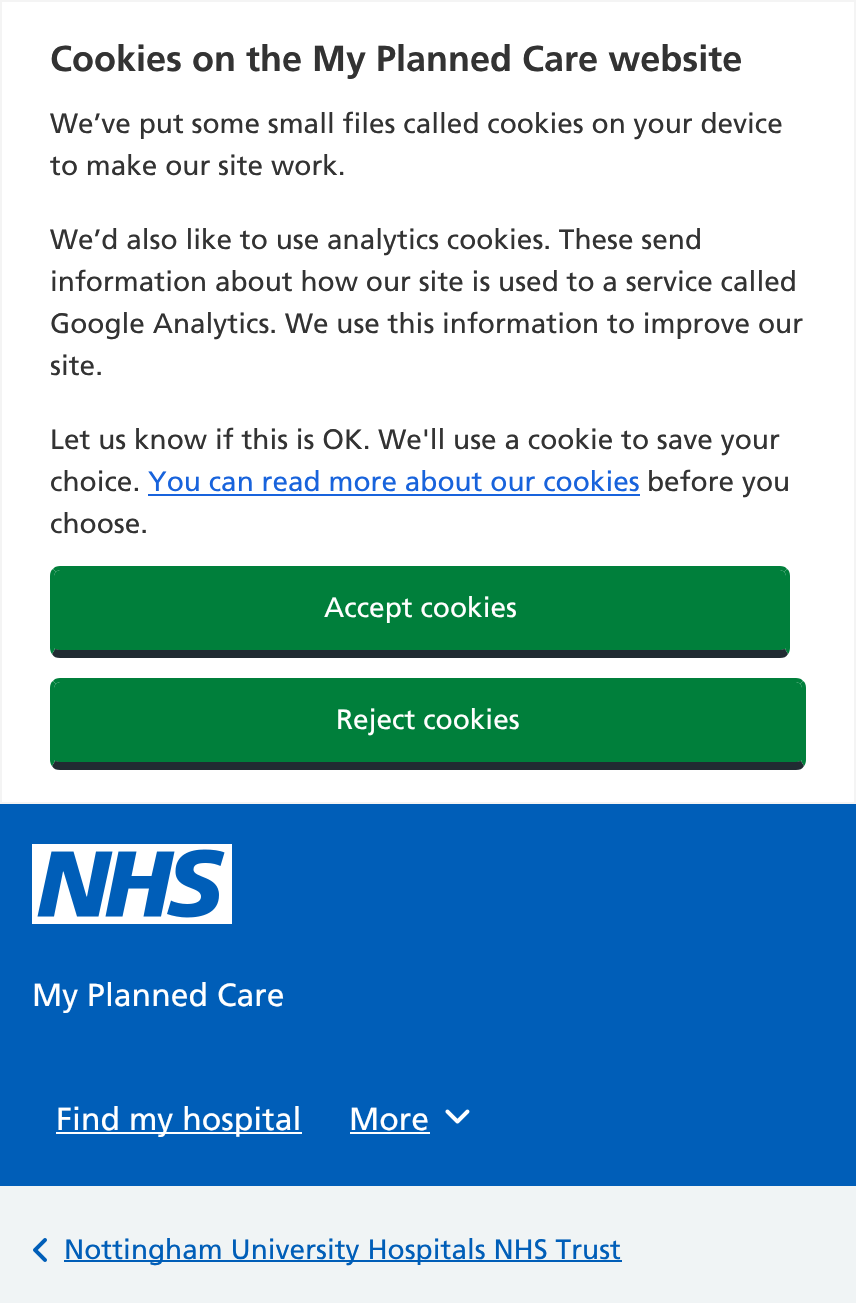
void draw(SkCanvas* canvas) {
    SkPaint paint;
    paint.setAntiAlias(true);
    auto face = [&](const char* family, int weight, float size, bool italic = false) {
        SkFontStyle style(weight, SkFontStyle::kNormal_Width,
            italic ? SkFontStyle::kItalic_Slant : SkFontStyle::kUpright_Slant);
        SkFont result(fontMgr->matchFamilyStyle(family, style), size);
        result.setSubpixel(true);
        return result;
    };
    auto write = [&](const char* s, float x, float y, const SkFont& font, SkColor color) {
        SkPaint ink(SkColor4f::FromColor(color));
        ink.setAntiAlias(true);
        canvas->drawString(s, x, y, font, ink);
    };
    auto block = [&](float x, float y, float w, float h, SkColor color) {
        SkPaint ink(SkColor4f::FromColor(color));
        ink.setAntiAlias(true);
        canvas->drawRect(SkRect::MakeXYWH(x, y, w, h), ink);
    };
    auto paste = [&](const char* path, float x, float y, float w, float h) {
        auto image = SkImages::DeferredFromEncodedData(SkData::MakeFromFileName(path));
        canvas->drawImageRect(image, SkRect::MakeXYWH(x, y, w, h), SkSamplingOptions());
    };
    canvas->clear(SkColorSetRGB(240, 244, 245));
    paint.setColor(SK_ColorWHITE);
    canvas->drawRect(SkRect::MakeXYWH(1, 1, 854, 802), paint);
    paint.setStyle(SkPaint::kStroke_Style);
    paint.setStrokeWidth(2);
    paint.setColor(SkColorSetRGB(244, 244, 244));
    canvas->drawRect(SkRect::MakeXYWH(1, 1, 854, 802), paint);
    auto kFont1 = face("Frutiger", 700, 36);
    write("Cookies on the My Planned Care website", 50, 71, kFont1, SkColorSetRGB(51, 51, 51));
    auto kFont2 = face("Frutiger", 400, 28);
    write("We’ve put some small files called cookies on your device", 50, 133, kFont2, SkColorSetRGB(51, 51, 51));
    write("to make our site work.", 50, 175, kFont2, SkColorSetRGB(51, 51, 51));
    write("We’d also like to use analytics cookies. These send", 50, 249, kFont2, SkColorSetRGB(51, 51, 51));
    write("information about how our site is used to a service called", 50, 291, kFont2, SkColorSetRGB(51, 51, 51));
    write("Google Analytics. We use this information to improve our", 50, 333, kFont2, SkColorSetRGB(51, 51, 51));
    write("site.", 50, 375, kFont2, SkColorSetRGB(51, 51, 51));
    write("Let us know if this is OK. We'll use a cookie to save your", 50, 449, kFont2, SkColorSetRGB(51, 51, 51));
    write("choice.", 50, 491, kFont2, SkColorSetRGB(51, 51, 51));
    write("You can read more about our cookies", 148, 491, kFont2, SkColorSetRGB(24, 99, 220));
    block(148, 494, 492, 2, SkColorSetRGB(24, 99, 220));
    write("before you", 647, 491, kFont2, SkColorSetRGB(51, 51, 51));
    write("choose.", 50, 533, kFont2, SkColorSetRGB(51, 51, 51));
    paint.setStyle(SkPaint::kFill_Style);
    paint.setColor(SkColorSetRGB(0, 127, 59));
    canvas->drawPath(SkPathBuilder().moveTo(60, 570).lineTo(780, 570).cubicTo(783, 570, 786, 573, 786, 576).lineTo(786, 648).cubicTo(786, 649, 783, 650, 780, 650).lineTo(60, 650).cubicTo(57, 650, 54, 649, 54, 648).lineTo(54, 576).cubicTo(54, 573, 57, 570, 60, 570).close().detach(), paint);
    canvas->drawPath(SkPathBuilder().moveTo(60, 566).cubicTo(57, 566, 54, 567, 53, 569).lineTo(56, 572).cubicTo(57, 571, 58, 570, 60, 570).lineTo(780, 570).cubicTo(782, 570, 783, 571, 784, 572).lineTo(787, 569).cubicTo(786, 567, 783, 566, 780, 566).close().detach(), paint);
    canvas->drawPath(SkPathBuilder().moveTo(790, 648).lineTo(790, 576).cubicTo(790, 573, 789, 570, 787, 569).lineTo(784, 572).cubicTo(785, 573, 786, 574, 786, 576).lineTo(786, 648).lineTo(785, 649).lineTo(788, 654).cubicTo(789, 653, 790, 650, 790, 648).close().detach(), paint);
    paint.setColor(SkColorSetRGB(33, 43, 50));
    canvas->drawPath(SkPathBuilder().moveTo(60, 658).lineTo(780, 658).cubicTo(784, 658, 786, 657, 788, 654).lineTo(785, 649).lineTo(780, 650).lineTo(60, 650).lineTo(55, 649).lineTo(52, 654).cubicTo(54, 657, 56, 658, 60, 658).close().detach(), paint);
    paint.setColor(SkColorSetRGB(0, 127, 59));
    canvas->drawPath(SkPathBuilder().moveTo(50, 576).lineTo(50, 648).cubicTo(50, 650, 51, 653, 52, 654).lineTo(55, 649).lineTo(54, 648).lineTo(54, 576).cubicTo(54, 574, 55, 573, 56, 572).lineTo(53, 569).cubicTo(51, 570, 50, 573, 50, 576).close().detach(), paint);
    write("Accept cookies", 324, 617, kFont2, SK_ColorWHITE);
    canvas->drawPath(SkPathBuilder().moveTo(60, 682).lineTo(796, 682).cubicTo(799, 682, 802, 685, 802, 688).lineTo(802, 760).cubicTo(802, 761, 799, 762, 796, 762).lineTo(60, 762).cubicTo(57, 762, 54, 761, 54, 760).lineTo(54, 688).cubicTo(54, 685, 57, 682, 60, 682).close().detach(), paint);
    canvas->drawPath(SkPathBuilder().moveTo(60, 678).cubicTo(57, 678, 54, 679, 53, 681).lineTo(56, 684).cubicTo(57, 683, 58, 682, 60, 682).lineTo(796, 682).cubicTo(798, 682, 799, 683, 800, 684).lineTo(803, 681).cubicTo(802, 679, 799, 678, 796, 678).close().detach(), paint);
    canvas->drawPath(SkPathBuilder().moveTo(806, 760).lineTo(806, 688).cubicTo(806, 685, 805, 682, 803, 681).lineTo(800, 684).cubicTo(801, 685, 802, 686, 802, 688).lineTo(802, 760).lineTo(801, 761).lineTo(804, 766).cubicTo(805, 765, 806, 762, 806, 760).close().detach(), paint);
    paint.setColor(SkColorSetRGB(33, 43, 50));
    canvas->drawPath(SkPathBuilder().moveTo(60, 770).lineTo(796, 770).cubicTo(800, 770, 802, 769, 804, 766).lineTo(801, 761).lineTo(796, 762).lineTo(60, 762).lineTo(55, 761).lineTo(52, 766).cubicTo(54, 769, 56, 770, 60, 770).close().detach(), paint);
    paint.setColor(SkColorSetRGB(0, 127, 59));
    canvas->drawPath(SkPathBuilder().moveTo(50, 688).lineTo(50, 760).cubicTo(50, 762, 51, 765, 52, 766).lineTo(55, 761).lineTo(54, 760).lineTo(54, 688).cubicTo(54, 686, 55, 685, 56, 684).lineTo(53, 681).cubicTo(51, 682, 50, 685, 50, 688).close().detach(), paint);
    write("Reject cookies", 336, 729, kFont2, SK_ColorWHITE);
    block(0, 804, 856, 382, SkColorSetRGB(0, 94, 184));
    paste("pic1.png", 32, 844, 200, 80);
    auto kFont3 = face("Frutiger", 400, 32);
    write("My Planned Care", 32, 1006, kFont3, SK_ColorWHITE);
    block(56, 1132, 246, 2, SK_ColorWHITE);
    write("Find my hospital", 56, 1130, kFont3, SK_ColorWHITE);
    write("More", 349, 1130, kFont3, SK_ColorWHITE);
    block(350, 1132, 80, 2, SK_ColorWHITE);
    paste("pic2.png", 445, 1109, 25, 15);
    paste("pic3.png", 33, 1238, 14, 24);
    block(64, 1260, 558, 2, SkColorSetRGB(0, 94, 184));
    write("Nottingham University Hospitals NHS Trust", 64, 1259, kFont2, SkColorSetRGB(0, 94, 184));
}
